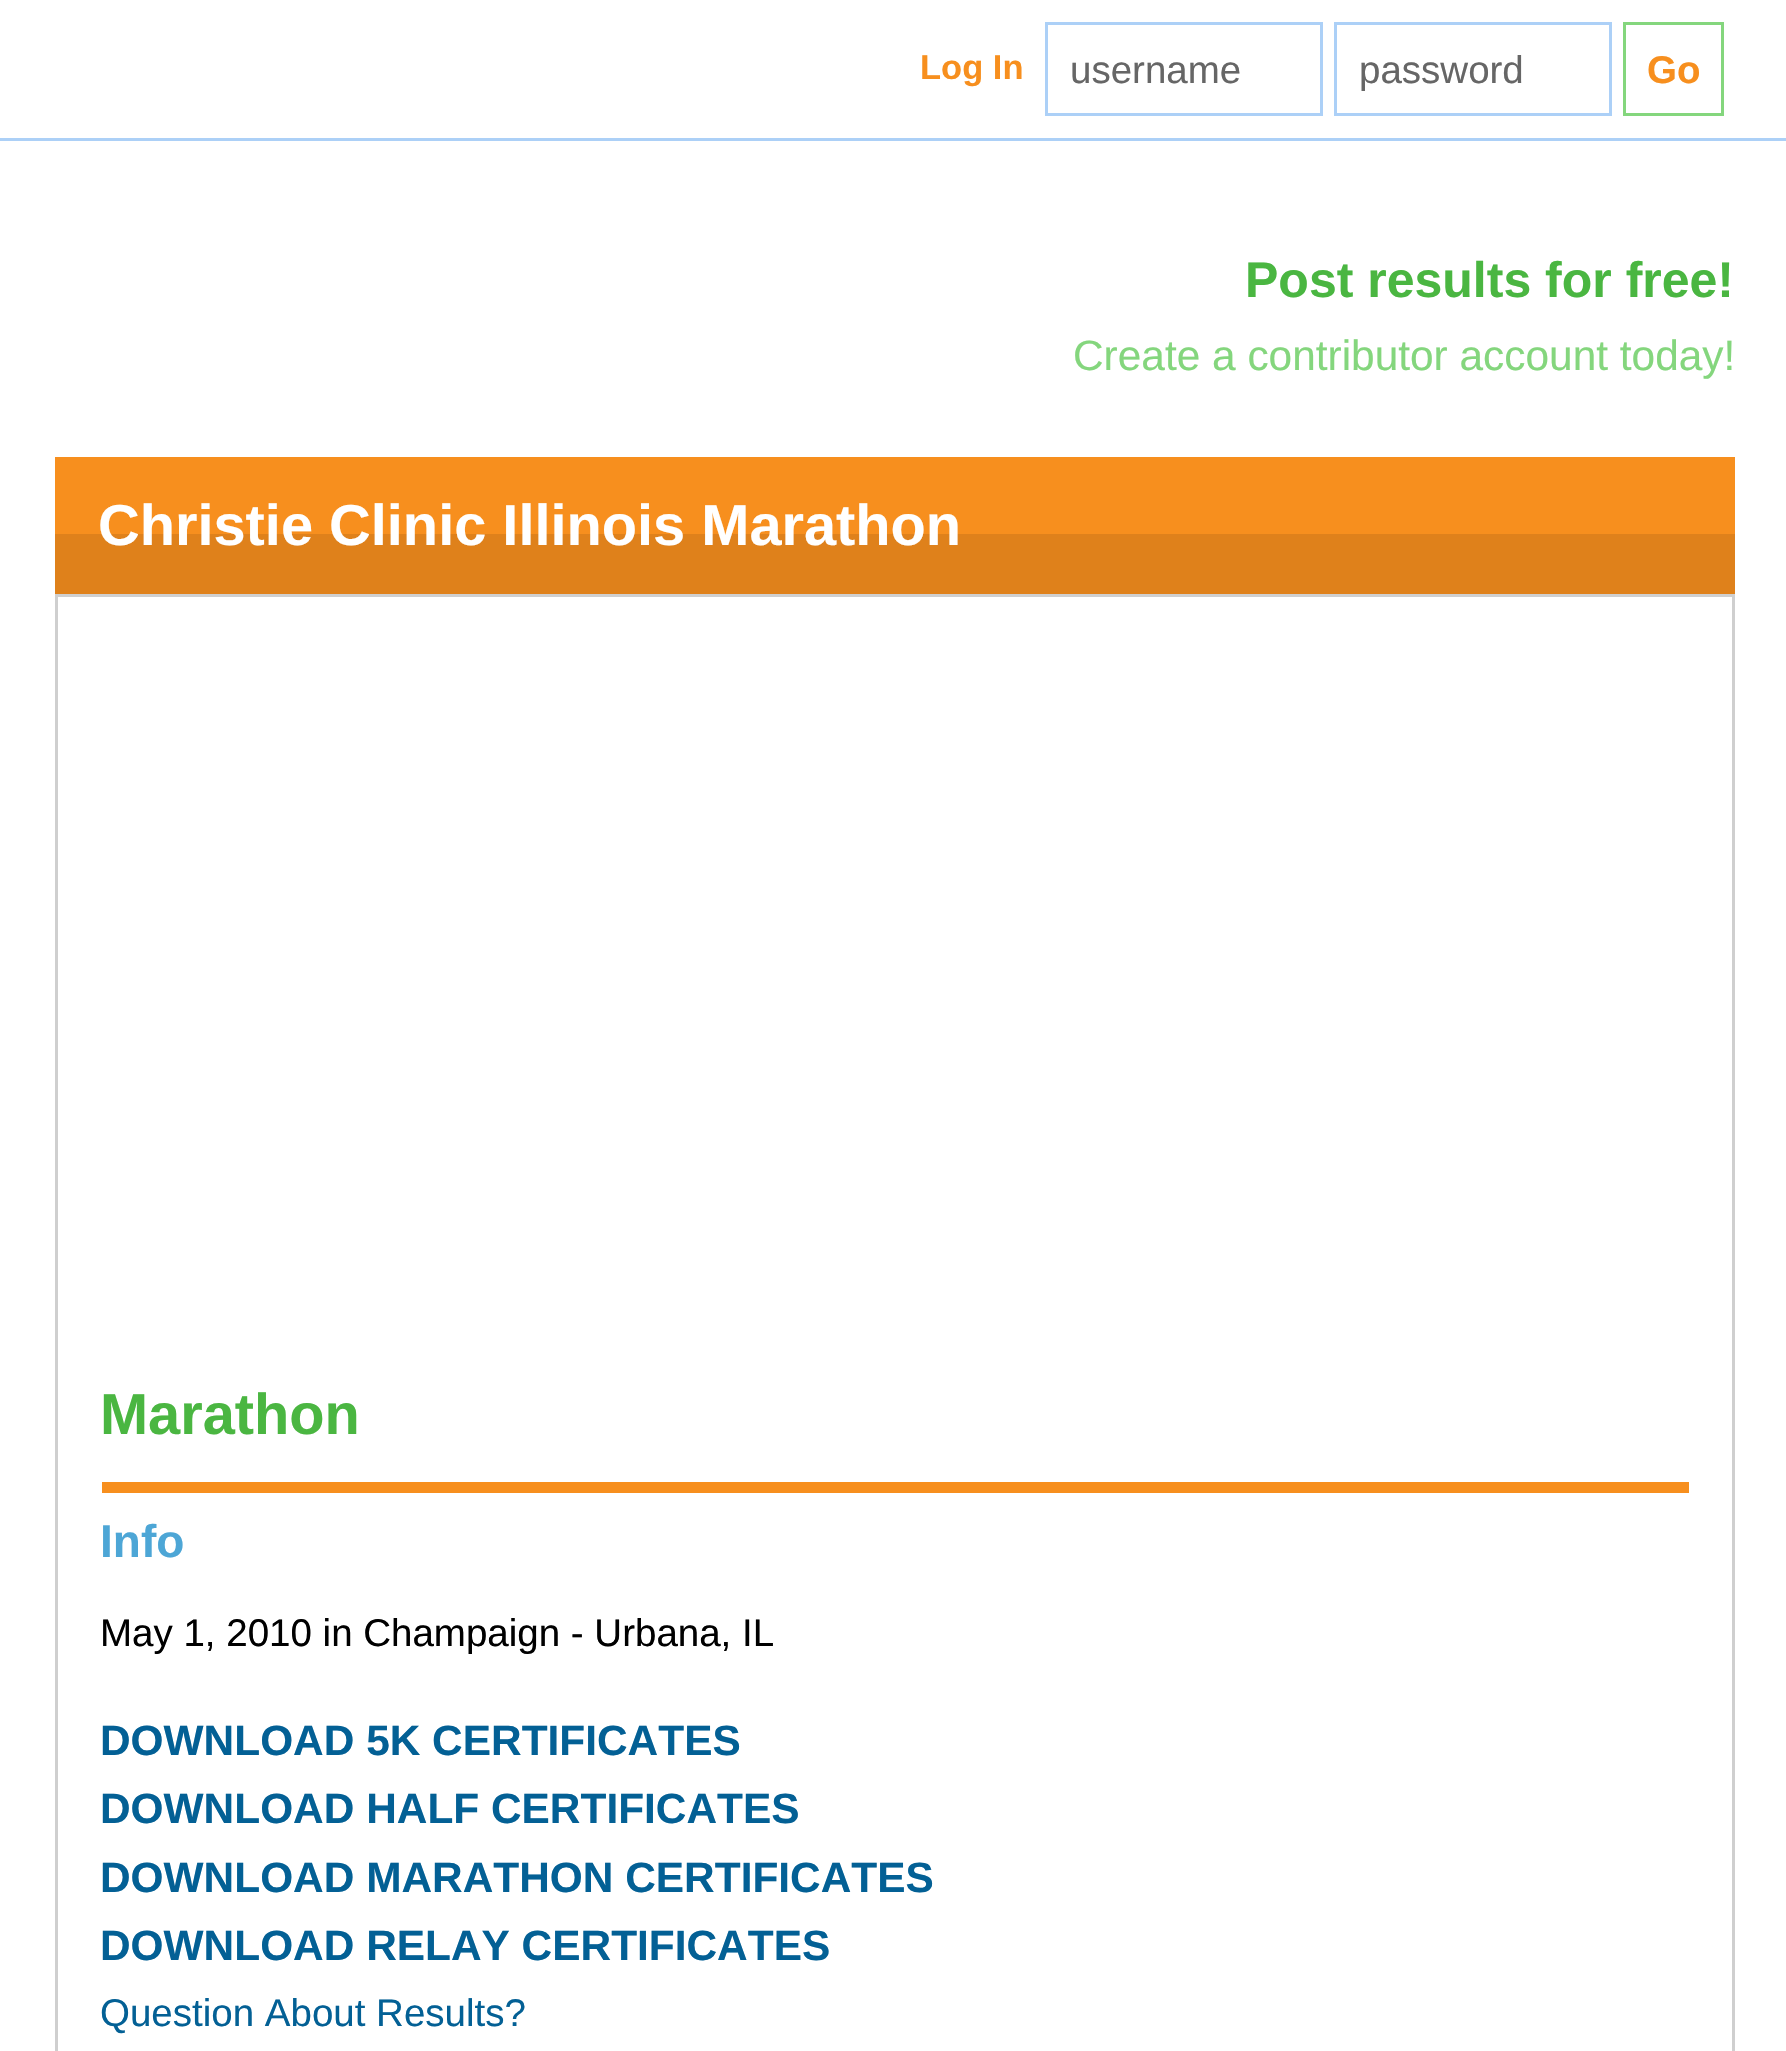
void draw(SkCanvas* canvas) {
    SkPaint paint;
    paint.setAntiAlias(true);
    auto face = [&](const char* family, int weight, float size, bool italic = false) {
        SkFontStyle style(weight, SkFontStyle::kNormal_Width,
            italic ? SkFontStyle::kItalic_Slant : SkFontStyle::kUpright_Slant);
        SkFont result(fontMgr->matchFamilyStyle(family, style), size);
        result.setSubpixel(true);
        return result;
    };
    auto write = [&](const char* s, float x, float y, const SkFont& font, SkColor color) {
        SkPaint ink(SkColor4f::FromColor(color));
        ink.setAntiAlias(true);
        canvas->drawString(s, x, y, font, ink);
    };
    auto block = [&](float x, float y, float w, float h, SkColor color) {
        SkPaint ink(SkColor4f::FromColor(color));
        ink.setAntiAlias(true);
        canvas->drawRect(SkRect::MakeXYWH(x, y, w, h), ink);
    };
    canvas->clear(SK_ColorWHITE);
    block(0, 138, 1786, 3, SkColorSetRGB(172, 208, 247));
    auto kFont1 = face("Liberation Sans", 700, 34.5f);
    write("Log In", 920, 79, kFont1, SkColorSetRGB(247, 143, 30));
    paint.setStyle(SkPaint::kStroke_Style);
    paint.setStrokeWidth(3);
    paint.setColor(SkColorSetRGB(172, 208, 247));
    canvas->drawRect(SkRect::MakeXYWH(1046.5f, 23.5f, 275, 91), paint);
    auto kFont2 = face("Liberation Sans", 400, 38.5f);
    write("username", 1070, 83, kFont2, SkColorSetRGB(102, 102, 102));
    canvas->drawRect(SkRect::MakeXYWH(1335.5f, 23.5f, 275, 91), paint);
    write("password", 1359, 83, kFont2, SkColorSetRGB(102, 102, 102));
    paint.setColor(SkColorSetRGB(132, 214, 125));
    canvas->drawRect(SkRect::MakeXYWH(1624.5f, 23.5f, 98, 91), paint);
    auto kFont3 = face("Liberation Sans", 700, 38.5f);
    write("Go", 1647, 83, kFont3, SkColorSetRGB(247, 143, 30));
    auto kFont4 = face("Liberation Sans", 700, 50);
    write("Post results for free!", 1245, 297, kFont4, SkColorSetRGB(74, 182, 65));
    auto kFont5 = face("Liberation Sans", 400, 42.4f);
    write("Create a contributor account today!", 1073, 370, kFont5, SkColorSetRGB(132, 214, 125));
    block(55, 457, 1680, 77, SkColorSetRGB(247, 143, 30));
    block(55, 534, 1680, 60, SkColorSetRGB(223, 129, 27));
    auto kFont6 = face("Liberation Sans", 700, 57.75f);
    write("Christie Clinic Illinois Marathon", 98, 545, kFont6, SK_ColorWHITE);
    paint.setColor(SkColorSetRGB(207, 207, 207));
    canvas->drawRect(SkRect::MakeXYWH(56.5f, 595.5f, 1677, 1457), paint);
    write("Marathon", 100, 1434, kFont6, SkColorSetRGB(74, 182, 65));
    block(102, 1482, 1587, 11, SkColorSetRGB(247, 143, 30));
    auto kFont7 = face("Liberation Sans", 700, 46);
    write("Info", 100, 1557, kFont7, SkColorSetRGB(77, 166, 214));
    write("May 1, 2010 in Champaign - Urbana, IL", 100, 1646, kFont2, SK_ColorBLACK);
    auto kFont8 = face("Liberation Sans", 700, 42.4f);
    write("DOWNLOAD 5K CERTIFICATES", 100, 1755, kFont8, SkColorSetRGB(3, 96, 149));
    write("DOWNLOAD HALF CERTIFICATES", 100, 1823, kFont8, SkColorSetRGB(3, 96, 149));
    write("DOWNLOAD MARATHON CERTIFICATES", 100, 1892, kFont8, SkColorSetRGB(3, 96, 149));
    write("DOWNLOAD RELAY CERTIFICATES", 100, 1960, kFont8, SkColorSetRGB(3, 96, 149));
    write("Question About Results?", 100, 2026, kFont2, SkColorSetRGB(3, 96, 149));
}
